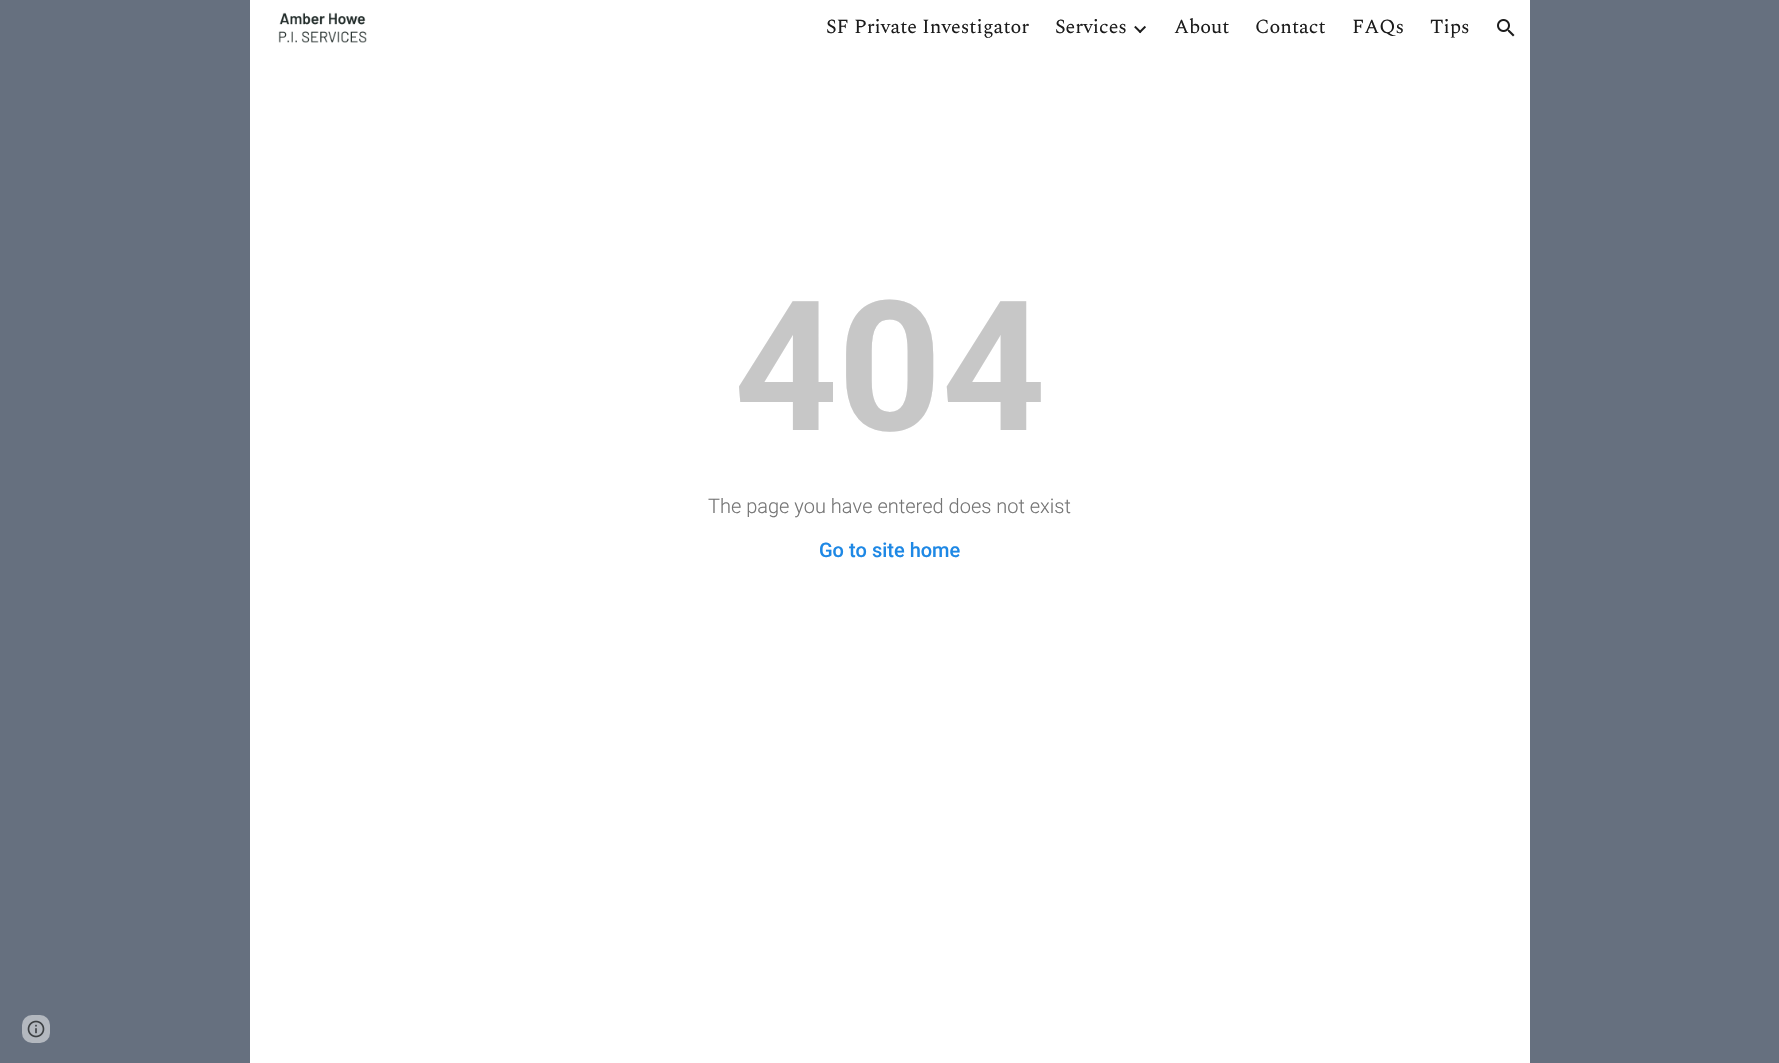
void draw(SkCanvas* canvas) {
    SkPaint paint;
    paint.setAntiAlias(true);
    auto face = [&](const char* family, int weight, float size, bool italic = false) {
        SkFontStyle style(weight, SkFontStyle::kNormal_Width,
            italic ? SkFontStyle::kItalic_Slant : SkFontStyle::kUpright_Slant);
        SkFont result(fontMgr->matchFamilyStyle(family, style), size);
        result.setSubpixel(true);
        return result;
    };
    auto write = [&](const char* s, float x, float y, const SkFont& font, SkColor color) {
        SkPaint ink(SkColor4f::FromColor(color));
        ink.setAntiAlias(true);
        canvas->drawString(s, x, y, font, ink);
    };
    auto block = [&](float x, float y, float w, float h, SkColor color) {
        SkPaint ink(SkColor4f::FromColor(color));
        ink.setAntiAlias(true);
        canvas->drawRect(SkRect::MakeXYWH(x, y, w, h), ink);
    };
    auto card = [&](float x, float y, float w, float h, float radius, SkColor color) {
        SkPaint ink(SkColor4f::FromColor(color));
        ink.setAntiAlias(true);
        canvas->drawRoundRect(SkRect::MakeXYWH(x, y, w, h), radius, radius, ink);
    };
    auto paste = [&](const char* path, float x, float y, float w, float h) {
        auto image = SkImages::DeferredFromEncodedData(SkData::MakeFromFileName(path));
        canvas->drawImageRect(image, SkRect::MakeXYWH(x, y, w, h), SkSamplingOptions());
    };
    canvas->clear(SkColorSetRGB(102, 112, 127));
    block(250, 0, 1280, 1063, SK_ColorWHITE);
    paste("pic1.png", 278, 12, 89, 31);
    auto kFont1 = face("Spectral", 400, 20);
    write("SF Private Investigator", 826, 33, kFont1, SkColorSetRGB(28, 28, 28));
    write("Services", 1055, 33, kFont1, SkColorSetRGB(28, 28, 28));
    paste("pic2.png", 1134, 25, 12, 9);
    write("About", 1174, 33, kFont1, SkColorSetRGB(28, 28, 28));
    write("Contact", 1255, 33, kFont1, SkColorSetRGB(28, 28, 28));
    write("FAQs", 1352, 33, kFont1, SkColorSetRGB(28, 28, 28));
    write("Tips", 1430, 33, kFont1, SkColorSetRGB(28, 28, 28));
    paste("pic3.png", 1497, 19, 18, 18);
    auto kFont2 = face("Roboto", 700, 181);
    write("404", 734, 430, kFont2, SkColorSetRGB(199, 199, 199));
    auto kFont3 = face("Roboto", 300, 20);
    write("The page you have entered does not exist", 708, 513, kFont3, SkColorSetRGB(117, 117, 117));
    auto kFont4 = face("Roboto", 500, 20);
    write("Go to site home", 819, 557, kFont4, SkColorSetRGB(30, 136, 229));
    card(22, 1015, 28, 28, 10, SkColorSetRGB(179, 184, 191));
    paste("pic4.png", 27, 1020, 18, 18);
}
